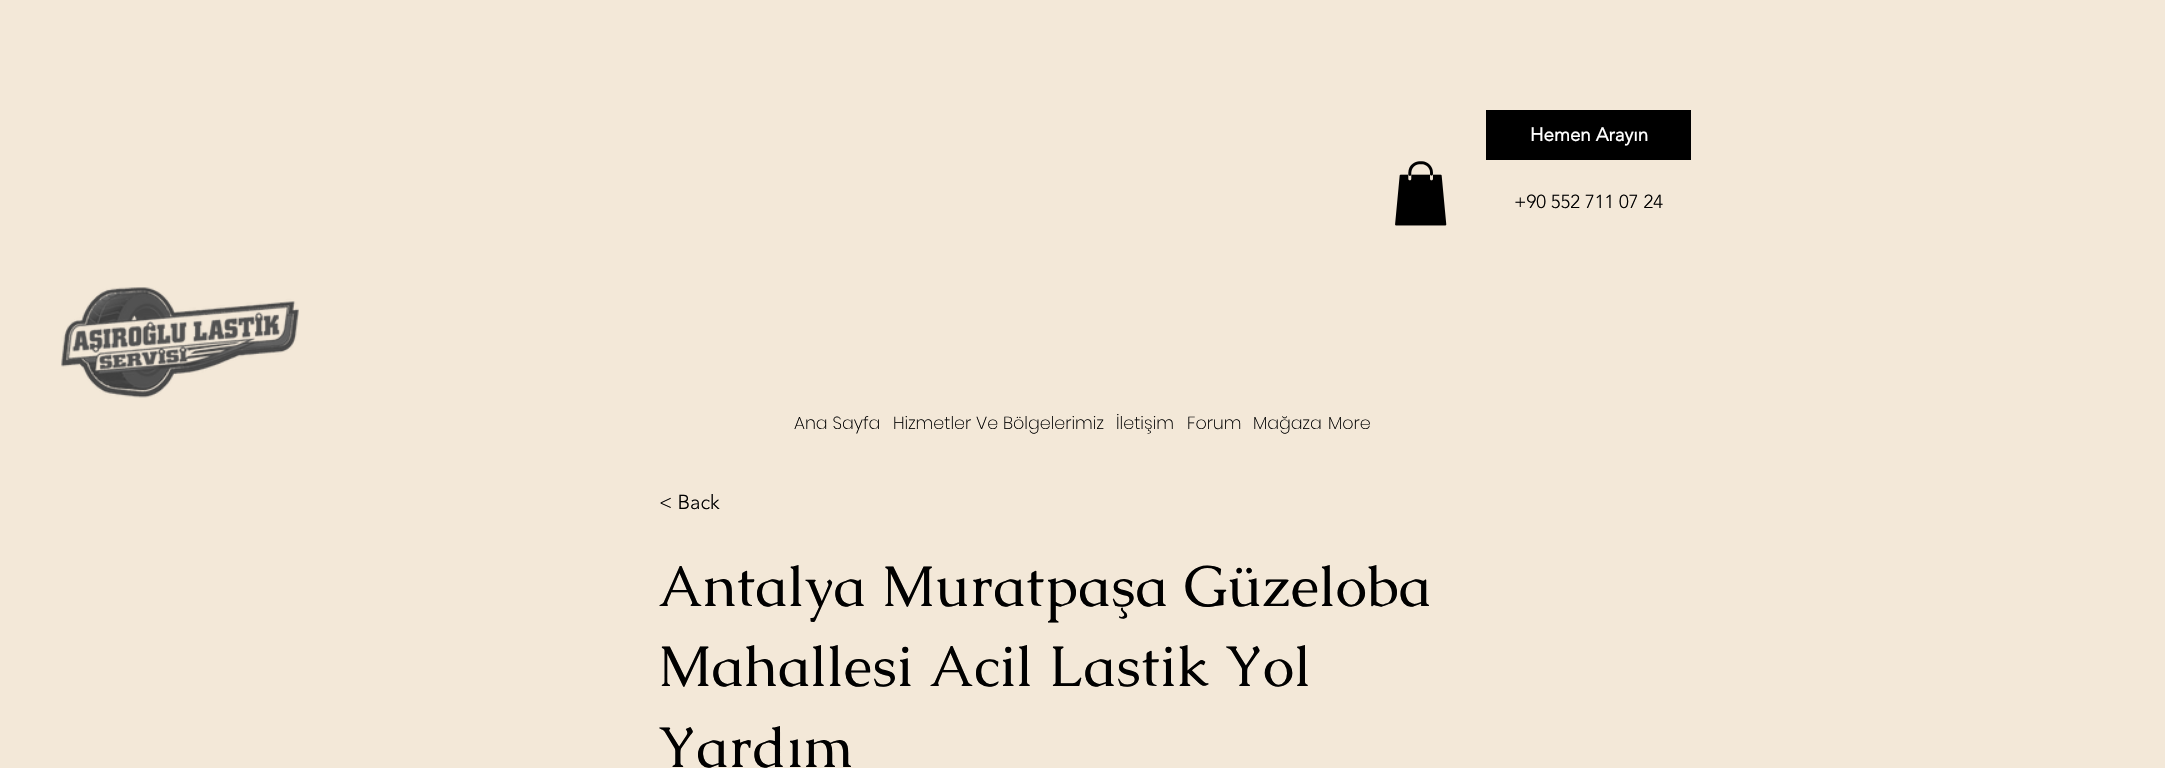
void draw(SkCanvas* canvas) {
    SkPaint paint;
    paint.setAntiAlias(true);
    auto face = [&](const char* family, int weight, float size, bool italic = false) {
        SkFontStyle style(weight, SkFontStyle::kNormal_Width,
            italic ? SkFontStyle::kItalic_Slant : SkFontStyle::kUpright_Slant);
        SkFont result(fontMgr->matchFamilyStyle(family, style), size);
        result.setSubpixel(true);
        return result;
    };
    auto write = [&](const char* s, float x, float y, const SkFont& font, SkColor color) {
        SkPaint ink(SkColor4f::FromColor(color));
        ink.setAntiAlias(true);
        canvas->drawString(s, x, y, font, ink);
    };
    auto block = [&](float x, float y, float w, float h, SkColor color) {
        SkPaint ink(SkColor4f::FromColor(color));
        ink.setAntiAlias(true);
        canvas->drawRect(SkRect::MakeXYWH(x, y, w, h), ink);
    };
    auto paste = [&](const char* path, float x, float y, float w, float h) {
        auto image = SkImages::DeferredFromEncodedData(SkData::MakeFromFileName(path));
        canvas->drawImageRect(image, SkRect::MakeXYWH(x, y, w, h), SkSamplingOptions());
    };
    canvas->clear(SkColorSetRGB(243, 232, 216));
    block(1486, 110, 205, 50, SK_ColorBLACK);
    auto kFont1 = face("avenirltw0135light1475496", 700, 18.75f);
    write("Hemen Arayın", 1530, 141, kFont1, SK_ColorWHITE);
    paste("pic1.png", 1395, 161, 52, 65);
    auto kFont2 = face("avenirltw0135light1475496", 300, 18.75f);
    write("+90 552 711 07 24", 1514, 208, kFont2, SK_ColorBLACK);
    paste("pic2.png", 61, 287, 238, 111);
    auto kFont3 = face("Poppins", 200, 17.5f);
    write("Ana Sayfa", 794, 429, kFont3, SK_ColorBLACK);
    write("Hizmetler Ve Bölgelerimiz", 893, 429, kFont3, SK_ColorBLACK);
    write("İletişim", 1116, 429, kFont3, SK_ColorBLACK);
    write("Forum", 1187, 429, kFont3, SK_ColorBLACK);
    write("Mağaza", 1253, 429, kFont3, SK_ColorBLACK);
    write("More", 1328, 429, kFont3, SK_ColorBLACK);
    auto kFont4 = face("avenirltw0135light1475496", 300, 20);
    write("< Back", 659, 509, kFont4, SK_ColorBLACK);
    auto kFont5 = face("Caudex", 400, 57.5f);
    write("Antalya Muratpaşa Güzeloba", 658, 606, kFont5, SK_ColorBLACK);
    write("Mahallesi Acil Lastik Yol", 658, 686, kFont5, SK_ColorBLACK);
    write("Yardım", 658, 767, kFont5, SK_ColorBLACK);
}
